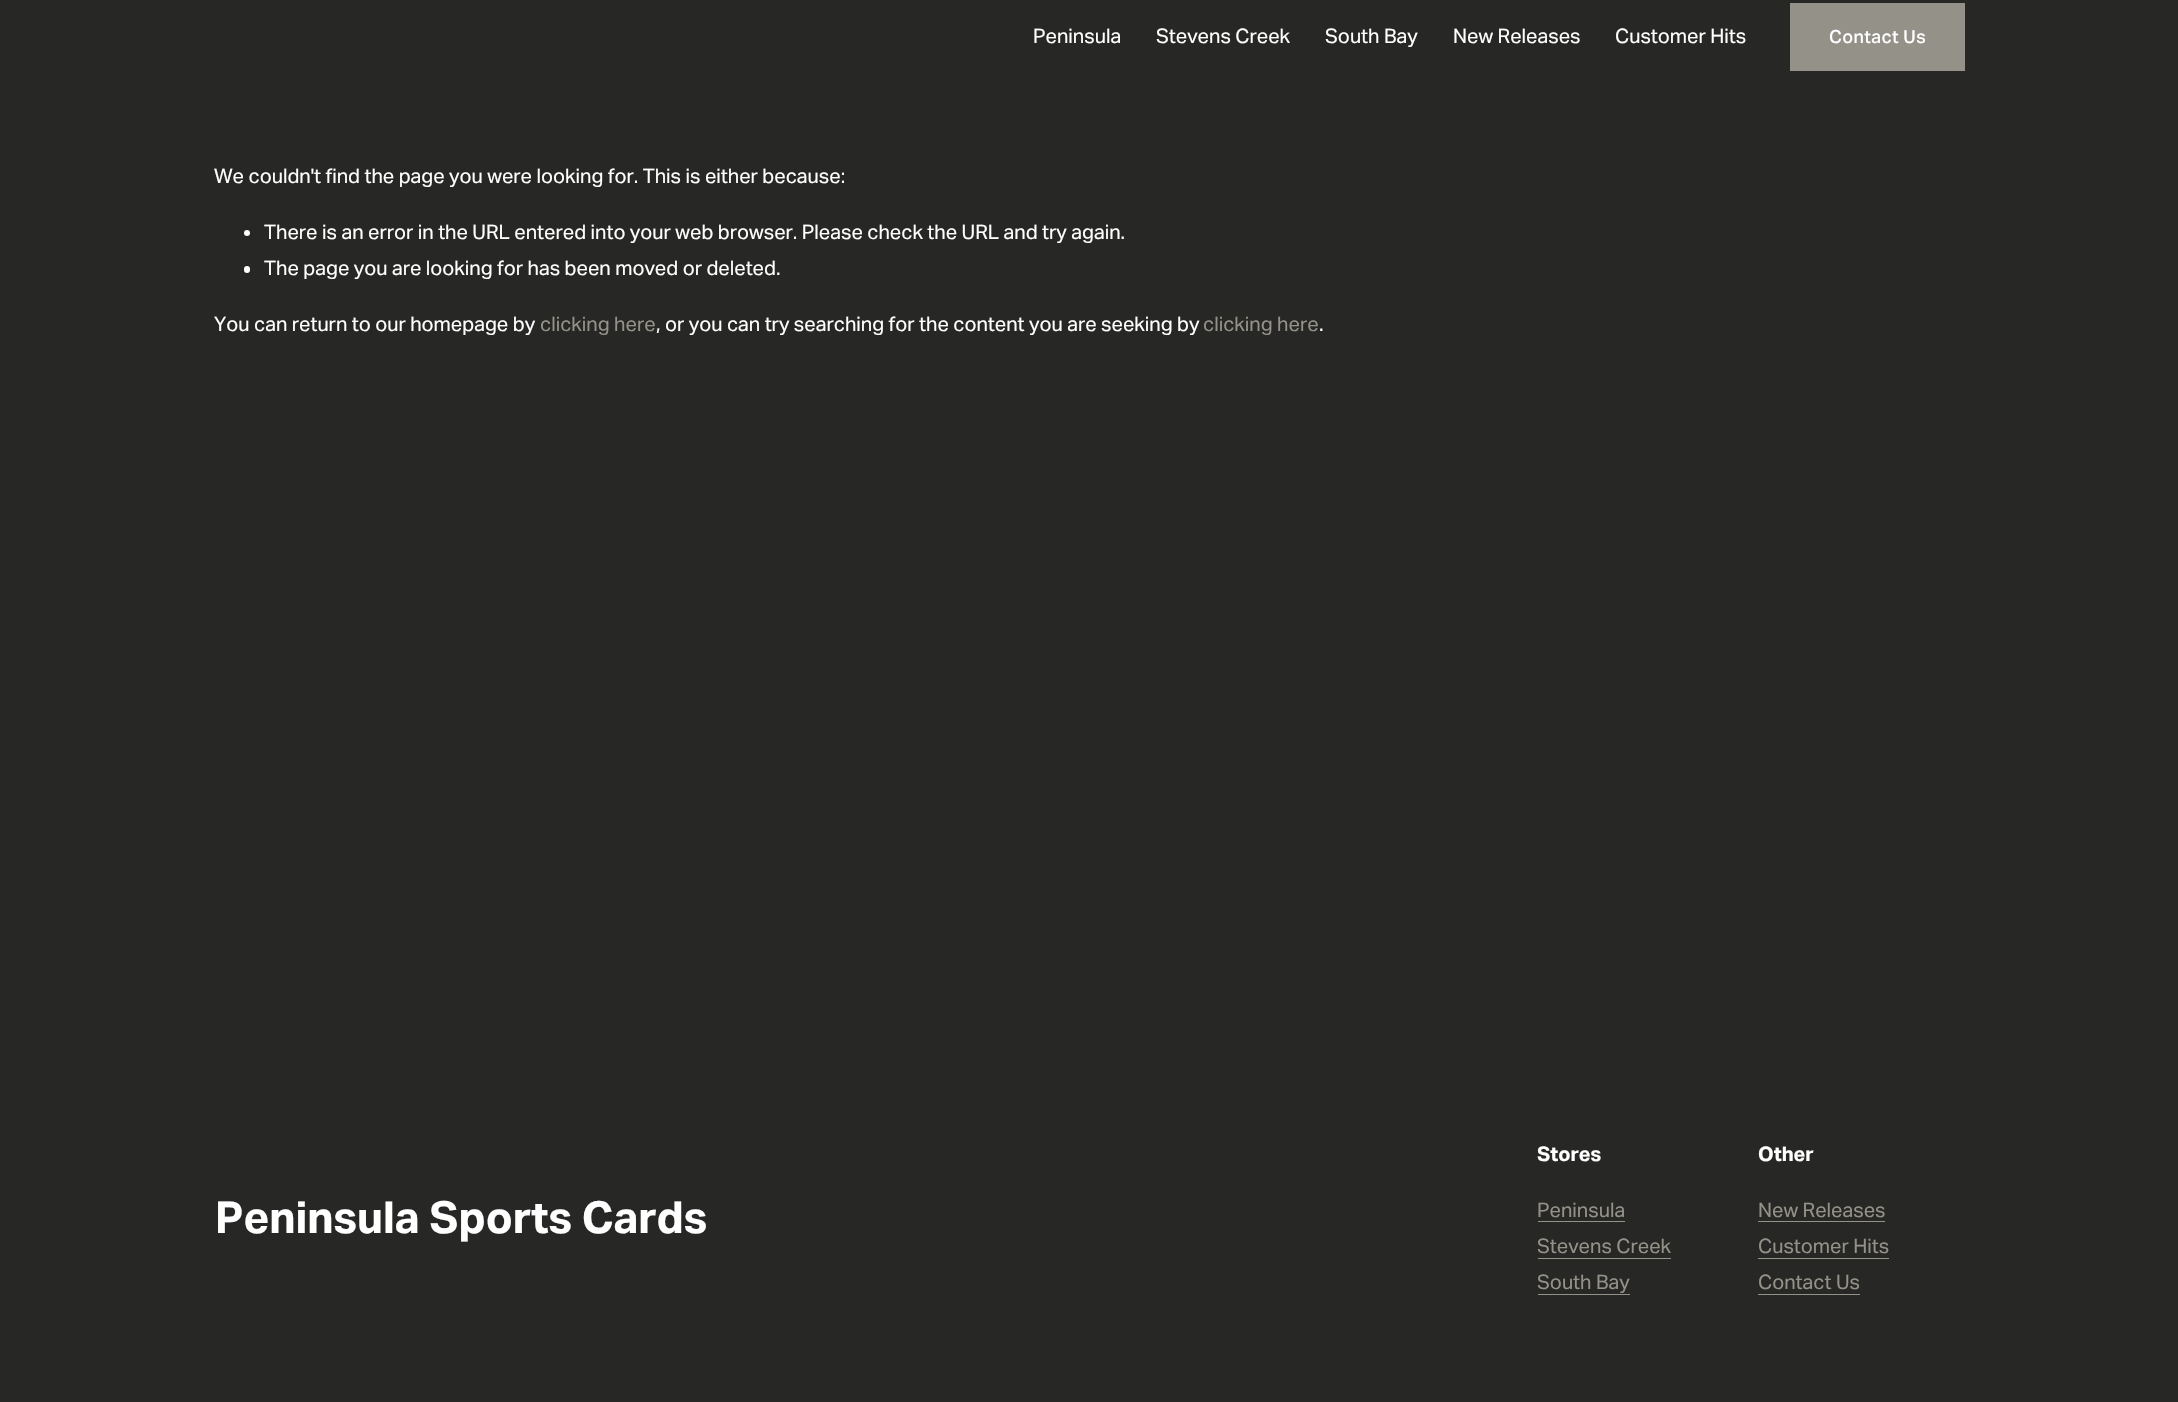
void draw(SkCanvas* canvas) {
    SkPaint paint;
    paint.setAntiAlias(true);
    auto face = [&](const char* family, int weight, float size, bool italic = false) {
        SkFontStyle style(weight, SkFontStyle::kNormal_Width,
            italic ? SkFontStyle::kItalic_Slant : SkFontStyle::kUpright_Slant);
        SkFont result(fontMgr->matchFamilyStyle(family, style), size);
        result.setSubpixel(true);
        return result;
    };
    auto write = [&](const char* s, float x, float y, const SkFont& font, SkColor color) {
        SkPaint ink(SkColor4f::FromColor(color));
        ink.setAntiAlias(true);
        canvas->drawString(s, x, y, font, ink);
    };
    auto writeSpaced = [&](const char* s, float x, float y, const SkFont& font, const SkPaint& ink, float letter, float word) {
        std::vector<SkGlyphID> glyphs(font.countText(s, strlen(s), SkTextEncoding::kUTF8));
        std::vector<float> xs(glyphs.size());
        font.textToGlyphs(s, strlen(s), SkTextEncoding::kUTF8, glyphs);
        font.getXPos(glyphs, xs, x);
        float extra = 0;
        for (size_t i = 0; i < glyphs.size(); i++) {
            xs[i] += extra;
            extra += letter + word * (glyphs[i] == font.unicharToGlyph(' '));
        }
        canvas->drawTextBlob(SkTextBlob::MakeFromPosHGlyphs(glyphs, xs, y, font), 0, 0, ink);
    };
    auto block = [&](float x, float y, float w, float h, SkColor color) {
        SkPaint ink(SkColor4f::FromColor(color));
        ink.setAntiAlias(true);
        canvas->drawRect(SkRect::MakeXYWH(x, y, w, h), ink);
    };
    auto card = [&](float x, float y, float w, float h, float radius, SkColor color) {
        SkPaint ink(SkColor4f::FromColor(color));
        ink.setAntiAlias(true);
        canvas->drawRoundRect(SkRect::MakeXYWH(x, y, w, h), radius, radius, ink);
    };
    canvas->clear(SkColorSetRGB(39, 39, 37));
    auto kFont1 = face("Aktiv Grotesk", 400, 20);
    write("Peninsula", 1033, 43, kFont1, SK_ColorWHITE);
    write("Stevens Creek", 1156, 43, kFont1, SK_ColorWHITE);
    write("South Bay", 1325, 43, kFont1, SK_ColorWHITE);
    write("New Releases", 1453, 43, kFont1, SK_ColorWHITE);
    write("Customer Hits", 1615, 43, kFont1, SK_ColorWHITE);
    block(1790, 3, 175, 68, SkColorSetRGB(148, 145, 137));
    auto kFont2 = face("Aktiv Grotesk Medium", 500, 18);
    paint.setColor(SK_ColorWHITE);
    writeSpaced("Contact Us", 1829, 43, kFont2, paint, 0.4f, 0);
    write("We couldn't find the page you were looking for. This is either because:", 214, 183, kFont1, SK_ColorWHITE);
    canvas->drawCircle(247, 233, 3, paint);
    write("There is an error in the URL entered into your web browser. Please check the URL and try again.", 264, 239, kFont1, SK_ColorWHITE);
    card(244, 266, 6, 7, 3, SK_ColorWHITE);
    write("The page you are looking for has been moved or deleted.", 264, 275, kFont1, SK_ColorWHITE);
    write("You can return to our homepage by", 214, 331, kFont1, SK_ColorWHITE);
    write("clicking here", 540, 331, kFont1, SkColorSetRGB(148, 145, 137));
    write(", or you can try searching for the content you are seeking by", 656, 331, kFont1, SK_ColorWHITE);
    write("clicking here", 1203, 331, kFont1, SkColorSetRGB(148, 145, 137));
    write(".", 1319, 331, kFont1, SK_ColorWHITE);
    auto kFont3 = face("Aktiv Grotesk", 700, 44);
    write("Peninsula Sports Cards", 215, 1233, kFont3, SK_ColorWHITE);
    auto kFont4 = face("Aktiv Grotesk", 700, 20);
    write("Stores", 1537, 1161, kFont4, SK_ColorWHITE);
    write("Peninsula", 1537, 1217, kFont1, SkColorSetRGB(148, 145, 137));
    block(1538, 1221, 87, 1, SkColorSetRGB(148, 145, 137));
    write("Stevens Creek", 1537, 1253, kFont1, SkColorSetRGB(148, 145, 137));
    block(1538, 1258, 133, 1, SkColorSetRGB(148, 145, 137));
    write("South Bay", 1537, 1289, kFont1, SkColorSetRGB(148, 145, 137));
    block(1538, 1294, 92, 1, SkColorSetRGB(148, 145, 137));
    write("Other", 1758, 1161, kFont4, SK_ColorWHITE);
    write("New Releases", 1758, 1217, kFont1, SkColorSetRGB(148, 145, 137));
    block(1758, 1221, 127, 1, SkColorSetRGB(148, 145, 137));
    write("Customer Hits", 1758, 1253, kFont1, SkColorSetRGB(148, 145, 137));
    block(1758, 1258, 131, 1, SkColorSetRGB(148, 145, 137));
    write("Contact Us", 1758, 1289, kFont1, SkColorSetRGB(148, 145, 137));
    block(1758, 1294, 102, 1, SkColorSetRGB(148, 145, 137));
}
